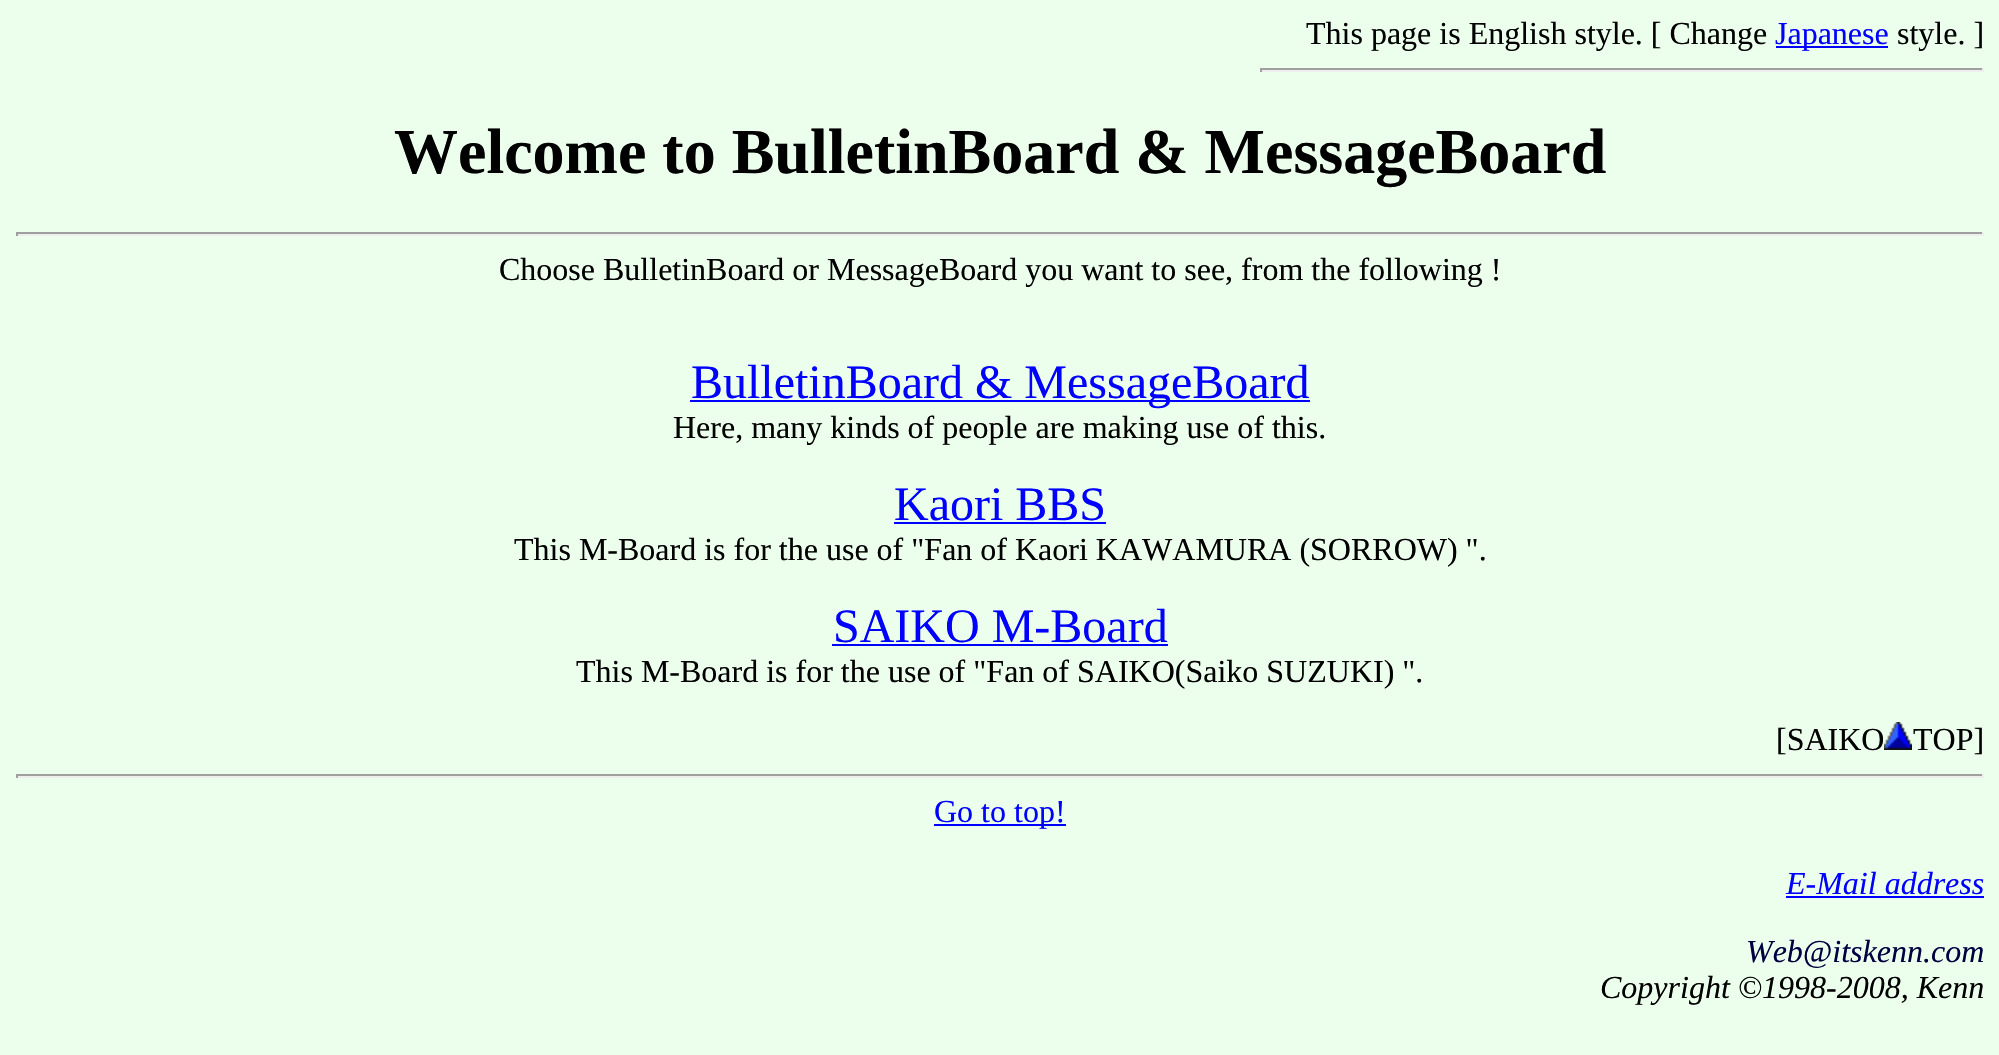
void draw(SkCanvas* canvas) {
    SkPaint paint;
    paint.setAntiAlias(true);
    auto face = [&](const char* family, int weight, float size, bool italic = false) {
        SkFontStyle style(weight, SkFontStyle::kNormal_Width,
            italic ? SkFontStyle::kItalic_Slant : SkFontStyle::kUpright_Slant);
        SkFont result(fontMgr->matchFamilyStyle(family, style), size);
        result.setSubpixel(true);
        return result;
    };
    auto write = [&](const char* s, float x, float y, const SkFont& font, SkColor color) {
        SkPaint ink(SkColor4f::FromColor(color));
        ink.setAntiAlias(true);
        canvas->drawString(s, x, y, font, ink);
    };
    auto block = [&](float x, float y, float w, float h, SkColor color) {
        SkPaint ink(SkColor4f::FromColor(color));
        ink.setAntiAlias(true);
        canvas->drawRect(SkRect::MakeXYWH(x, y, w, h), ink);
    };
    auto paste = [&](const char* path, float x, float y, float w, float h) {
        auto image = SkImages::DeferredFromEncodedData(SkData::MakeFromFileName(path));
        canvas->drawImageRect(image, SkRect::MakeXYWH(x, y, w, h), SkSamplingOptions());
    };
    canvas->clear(SkColorSetRGB(236, 255, 236));
    auto kFont1 = face("Liberation Serif", 400, 32);
    write("This page is English style. [ Change", 1306, 44, kFont1, SK_ColorBLACK);
    block(1776, 46, 112, 2, SkColorSetRGB(0, 0, 255));
    write("Japanese", 1775, 44, kFont1, SkColorSetRGB(0, 0, 255));
    write("style. ]", 1897, 44, kFont1, SK_ColorBLACK);
    block(1260, 68, 724, 2, SkColorSetRGB(159, 159, 159));
    block(1982, 68, 2, 4, SkColorSetRGB(238, 238, 238));
    block(1260, 70, 724, 2, SkColorSetRGB(238, 238, 238));
    block(1260, 68, 2, 4, SkColorSetRGB(159, 159, 159));
    auto kFont2 = face("Liberation Serif", 700, 64);
    write("Welcome to BulletinBoard & MessageBoard", 394, 173, kFont2, SK_ColorBLACK);
    block(16, 232, 1968, 2, SkColorSetRGB(159, 159, 159));
    block(1982, 232, 2, 4, SkColorSetRGB(238, 238, 238));
    block(16, 234, 1968, 2, SkColorSetRGB(238, 238, 238));
    block(16, 232, 2, 4, SkColorSetRGB(159, 159, 159));
    write("Choose BulletinBoard or MessageBoard you want to see, from the following !", 499, 280, kFont1, SK_ColorBLACK);
    block(690, 400, 620, 2, SkColorSetRGB(0, 0, 255));
    auto kFont3 = face("Liberation Serif", 400, 48);
    write("BulletinBoard & MessageBoard", 691, 398, kFont3, SkColorSetRGB(0, 0, 255));
    write("Here, many kinds of people are making use of this.", 673, 438, kFont1, SK_ColorBLACK);
    write("Kaori BBS", 894, 520, kFont3, SkColorSetRGB(0, 0, 255));
    block(894, 522, 212, 2, SkColorSetRGB(0, 0, 255));
    write("This M-Board is for the use of \"Fan of Kaori KAWAMURA (SORROW) \".", 514, 560, kFont1, SK_ColorBLACK);
    write("SAIKO M-Board", 833, 642, kFont3, SkColorSetRGB(0, 0, 255));
    block(832, 644, 336, 2, SkColorSetRGB(0, 0, 255));
    write("This M-Board is for the use of \"Fan of SAIKO(Saiko SUZUKI) \".", 576, 682, kFont1, SK_ColorBLACK);
    write("[SAIKO", 1776, 750, kFont1, SK_ColorBLACK);
    paste("pic1.png", 1884, 722, 28, 28);
    write("TOP]", 1913, 750, kFont1, SK_ColorBLACK);
    block(16, 774, 1968, 2, SkColorSetRGB(159, 159, 159));
    block(1982, 774, 2, 4, SkColorSetRGB(238, 238, 238));
    block(16, 776, 1968, 2, SkColorSetRGB(238, 238, 238));
    block(16, 774, 2, 4, SkColorSetRGB(159, 159, 159));
    block(934, 824, 132, 2, SkColorSetRGB(0, 0, 255));
    write("Go to top!", 934, 822, kFont1, SkColorSetRGB(0, 0, 255));
    auto kFont4 = face("Liberation Serif", 400, 32, true);
    write("E-Mail address", 1786, 894, kFont4, SkColorSetRGB(0, 0, 255));
    block(1786, 896, 198, 2, SkColorSetRGB(0, 0, 255));
    write("Web@itskenn.com", 1746, 962, kFont4, SkColorSetRGB(0, 0, 64));
    write("Copyright ©1998-2008, Kenn", 1600, 998, kFont4, SK_ColorBLACK);
}
